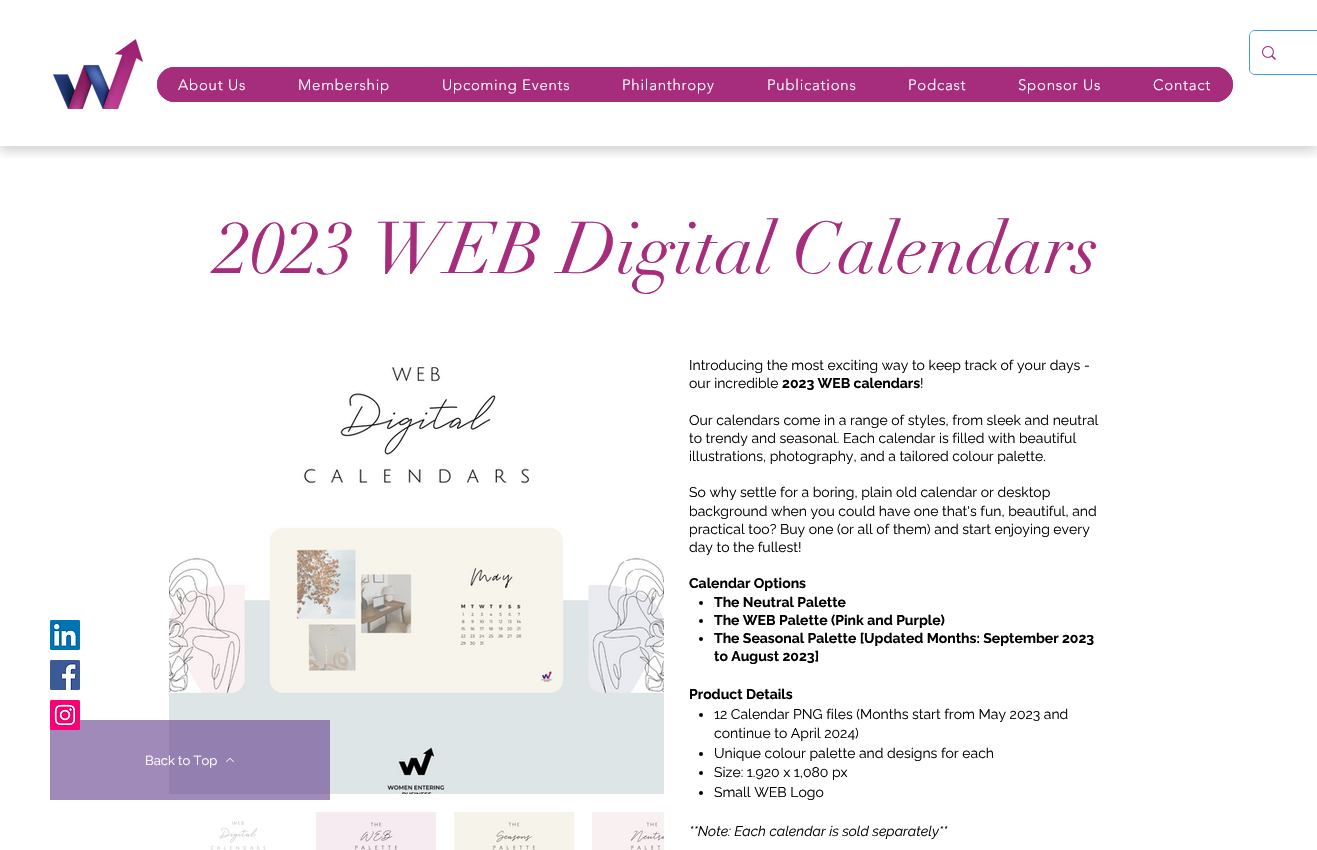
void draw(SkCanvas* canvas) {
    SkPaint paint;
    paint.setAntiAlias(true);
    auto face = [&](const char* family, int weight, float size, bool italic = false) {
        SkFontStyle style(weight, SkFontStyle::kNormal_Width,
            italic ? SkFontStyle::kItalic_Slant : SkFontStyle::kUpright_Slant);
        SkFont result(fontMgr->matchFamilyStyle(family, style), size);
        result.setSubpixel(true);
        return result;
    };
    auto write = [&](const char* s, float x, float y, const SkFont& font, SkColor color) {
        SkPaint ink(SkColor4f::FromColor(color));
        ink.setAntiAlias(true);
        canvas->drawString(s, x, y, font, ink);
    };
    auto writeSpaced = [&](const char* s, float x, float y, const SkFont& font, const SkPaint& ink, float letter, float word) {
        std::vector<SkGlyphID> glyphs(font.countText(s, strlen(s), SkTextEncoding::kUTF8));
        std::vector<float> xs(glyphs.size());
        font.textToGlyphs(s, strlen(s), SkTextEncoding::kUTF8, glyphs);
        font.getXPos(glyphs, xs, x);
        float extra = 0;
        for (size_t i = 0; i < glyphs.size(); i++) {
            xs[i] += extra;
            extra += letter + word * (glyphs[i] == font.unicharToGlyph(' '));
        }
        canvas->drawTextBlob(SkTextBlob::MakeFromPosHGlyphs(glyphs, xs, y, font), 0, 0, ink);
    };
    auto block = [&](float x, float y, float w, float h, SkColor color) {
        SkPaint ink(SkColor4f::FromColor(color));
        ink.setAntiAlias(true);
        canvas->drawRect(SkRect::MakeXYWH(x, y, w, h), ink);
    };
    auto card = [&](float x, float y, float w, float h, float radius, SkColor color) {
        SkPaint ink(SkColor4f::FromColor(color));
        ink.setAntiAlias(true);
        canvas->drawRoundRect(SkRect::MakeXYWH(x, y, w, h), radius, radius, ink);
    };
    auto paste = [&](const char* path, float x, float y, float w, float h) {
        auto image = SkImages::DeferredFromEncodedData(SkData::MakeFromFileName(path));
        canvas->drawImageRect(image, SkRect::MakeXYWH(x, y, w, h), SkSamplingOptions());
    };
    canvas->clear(SK_ColorWHITE);
    canvas->save();
    canvas->clipRect(SkRect::MakeXYWH(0, 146, 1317, 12));
    paint.setColor(SkColorSetARGB(46, 0, 0, 0));
    paint.setMaskFilter(SkMaskFilter::MakeBlur(kNormal_SkBlurStyle, 5.5f));
    canvas->drawRect(SkRect::MakeXYWH(0, 5, 1317, 146), paint);
    paint.setMaskFilter(nullptr);
    canvas->restore();
    paste("pic1.png", 53, 39, 90, 70);
    card(157, 67, 1076, 35, 17.5f, SkColorSetRGB(166, 45, 124));
    card(157, 67, 111, 35, 17.5f, SkColorSetRGB(166, 45, 124));
    auto kFont1 = face("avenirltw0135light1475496", 300, 15);
    paint.setColor(SK_ColorWHITE);
    writeSpaced("About Us", 178, 90, kFont1, paint, 0.75f, 0);
    writeSpaced("Membership", 298, 90, kFont1, paint, 0.75f, 0);
    writeSpaced("Upcoming Events", 442, 90, kFont1, paint, 0.75f, 0);
    writeSpaced("Philanthropy", 622, 90, kFont1, paint, 0.75f, 0);
    writeSpaced("Publications", 767, 90, kFont1, paint, 0.75f, 0);
    writeSpaced("Podcast", 908, 90, kFont1, paint, 0.75f, 0);
    writeSpaced("Sponsor Us", 1018, 90, kFont1, paint, 0.75f, 0);
    card(1131, 67, 102, 35, 17.5f, SkColorSetRGB(166, 45, 124));
    writeSpaced("Contact", 1153, 90, kFont1, paint, 0.75f, 0);
    paint.setStyle(SkPaint::kStroke_Style);
    paint.setStrokeWidth(1);
    paint.setColor(SkColorSetRGB(61, 155, 233));
    canvas->drawRoundRect(SkRect::MakeXYWH(1249.5f, 30.5f, 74, 44), 5.5f, 5.5f, paint);
    card(1250, 31, 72, 43, 5, SK_ColorWHITE);
    paste("pic2.png", 1262, 46, 14, 14);
    paste("pic3.png", 50, 620, 30, 30);
    paste("pic4.png", 50, 660, 30, 30);
    paste("pic7.png", 169, 367, 495, 427);
    block(50, 720, 280, 80, SkColorSetARGB(153, 97, 60, 140));
    paste("pic5.png", 50, 700, 30, 30);
    auto kFont2 = face("Raleway", 400, 13);
    write("Back to Top", 145, 765, kFont2, SK_ColorWHITE);
    paste("pic6.png", 226, 758, 8, 4);
    auto kFont3 = face("didot", 400, 72);
    write("2023 WEB Digital Calendars", 216, 273, kFont3, SkColorSetRGB(166, 45, 124));
    paint.setStyle(SkPaint::kFill_Style);
    paint.setColor(SkColorSetARGB(230, 255, 255, 255));
    canvas->drawPath(SkPathBuilder().moveTo(620, 557.5f).lineTo(621.5f, 556).lineTo(639.5f, 574).lineTo(621.5f, 592).lineTo(620, 590.5f).lineTo(636.5f, 574).close().detach(), paint);
    paste("pic8.png", 210, 821, 56, 29);
    paste("pic9.png", 316, 812, 120, 38);
    paste("pic10.png", 454, 812, 120, 38);
    paste("pic11.png", 592, 812, 72, 38);
    auto kFont4 = face("Raleway", 400, 14);
    write("Introducing the most exciting way to keep track of your days -", 689, 370, kFont4, SK_ColorBLACK);
    write("our incredible", 689, 388, kFont4, SK_ColorBLACK);
    auto kFont5 = face("Raleway", 700, 14);
    write("2023 WEB calendars", 782, 388, kFont5, SK_ColorBLACK);
    write("!", 920, 388, kFont4, SK_ColorBLACK);
    write("Our calendars come in a range of styles, from sleek and neutral", 689, 425, kFont4, SK_ColorBLACK);
    write("to trendy and seasonal. Each calendar is filled with beautiful", 689, 443, kFont4, SK_ColorBLACK);
    write("illustrations, photography, and a tailored colour palette.", 689, 461, kFont4, SK_ColorBLACK);
    write("So why settle for a boring, plain old calendar or desktop", 689, 497, kFont4, SK_ColorBLACK);
    write("background when you could have one that's fun, beautiful, and", 689, 516, kFont4, SK_ColorBLACK);
    write("practical too? Buy one (or all of them) and start enjoying every", 689, 534, kFont4, SK_ColorBLACK);
    write("day to the fullest!", 689, 552, kFont4, SK_ColorBLACK);
    write("Calendar Options", 689, 588, kFont5, SK_ColorBLACK);
    paint.setColor(SK_ColorBLACK);
    canvas->drawCircle(701, 603, 2, paint);
    write("The Neutral Palette", 714, 607, kFont5, SK_ColorBLACK);
    canvas->drawCircle(701, 621, 2, paint);
    write("The WEB Palette (Pink and Purple)", 714, 625, kFont5, SK_ColorBLACK);
    canvas->drawCircle(701, 639, 2, paint);
    write("The Seasonal Palette [Updated Months: September 2023", 714, 643, kFont5, SK_ColorBLACK);
    write("to August 2023]", 714, 661, kFont5, SK_ColorBLACK);
    write("Product Details", 689, 699, kFont5, SK_ColorBLACK);
    canvas->drawCircle(701, 715, 2, paint);
    write("12 Calendar PNG files (Months start from May 2023 and", 714, 719, kFont4, SK_ColorBLACK);
    write("continue to April 2024)", 714, 738, kFont4, SK_ColorBLACK);
    canvas->drawCircle(701, 754, 2, paint);
    write("Unique colour palette and designs for each", 714, 758, kFont4, SK_ColorBLACK);
    canvas->drawCircle(701, 773, 2, paint);
    write("Size: 1.920 x 1,080 px", 714, 777, kFont4, SK_ColorBLACK);
    canvas->drawCircle(701, 793, 2, paint);
    write("Small WEB Logo", 714, 797, kFont4, SK_ColorBLACK);
    auto kFont6 = face("Raleway", 400, 14, true);
    write("**Note: Each calendar is sold separately**", 689, 836, kFont6, SK_ColorBLACK);
}
